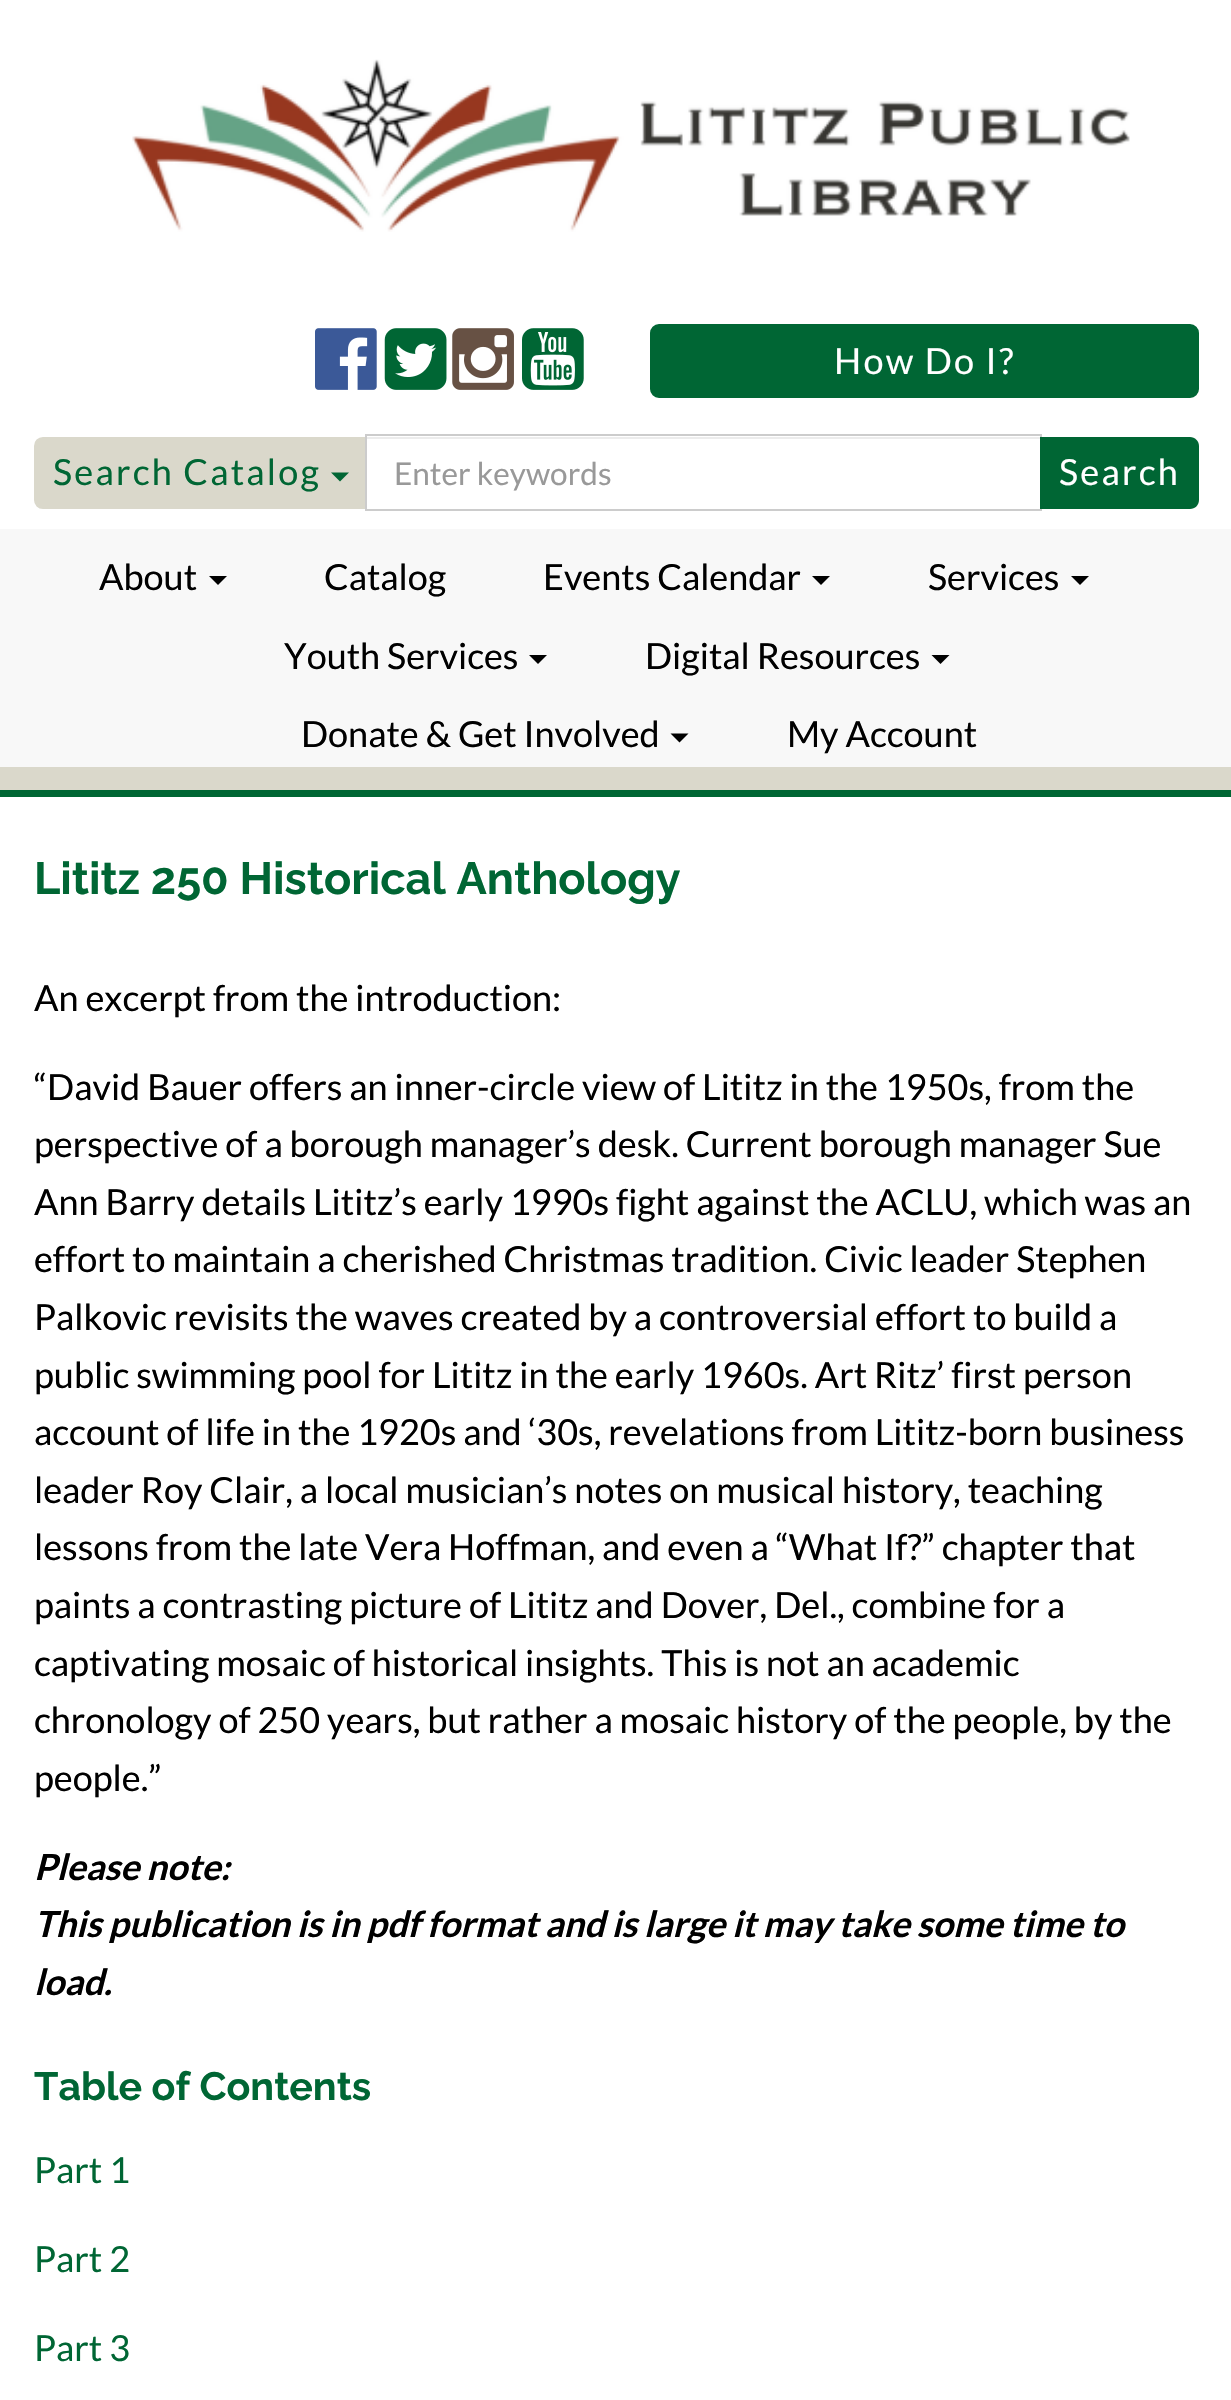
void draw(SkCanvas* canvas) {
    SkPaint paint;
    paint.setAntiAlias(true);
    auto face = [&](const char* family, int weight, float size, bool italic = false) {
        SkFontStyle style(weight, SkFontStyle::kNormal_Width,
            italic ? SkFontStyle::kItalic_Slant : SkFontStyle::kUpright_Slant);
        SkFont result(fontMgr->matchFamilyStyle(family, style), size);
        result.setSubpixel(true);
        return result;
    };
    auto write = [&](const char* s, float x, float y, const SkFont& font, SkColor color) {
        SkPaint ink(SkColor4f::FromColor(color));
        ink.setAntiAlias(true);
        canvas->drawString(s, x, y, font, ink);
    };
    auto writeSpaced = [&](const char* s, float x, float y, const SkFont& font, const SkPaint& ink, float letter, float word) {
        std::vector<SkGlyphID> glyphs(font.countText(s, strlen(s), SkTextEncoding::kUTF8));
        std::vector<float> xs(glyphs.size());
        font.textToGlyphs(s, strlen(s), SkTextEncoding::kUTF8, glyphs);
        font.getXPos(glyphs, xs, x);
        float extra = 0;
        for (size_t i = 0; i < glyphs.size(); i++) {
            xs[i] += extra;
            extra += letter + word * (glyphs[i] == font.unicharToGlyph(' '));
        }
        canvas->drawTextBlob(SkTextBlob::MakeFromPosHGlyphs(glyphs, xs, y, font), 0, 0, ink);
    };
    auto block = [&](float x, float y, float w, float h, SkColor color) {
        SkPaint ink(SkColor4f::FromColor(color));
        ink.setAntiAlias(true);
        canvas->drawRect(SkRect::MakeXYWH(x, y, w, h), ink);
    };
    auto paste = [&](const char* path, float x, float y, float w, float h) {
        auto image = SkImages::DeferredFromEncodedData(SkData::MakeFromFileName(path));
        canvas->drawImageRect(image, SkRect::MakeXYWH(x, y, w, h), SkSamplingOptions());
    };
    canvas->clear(SK_ColorWHITE);
    paste("pic1.png", 132, 59, 998, 173);
    paste("pic2.png", 315, 328, 62, 62);
    paste("pic3.png", 384, 328, 63, 62);
    paste("pic4.png", 452, 328, 62, 62);
    paste("pic5.png", 522, 328, 62, 62);
    paint.setColor(SkColorSetRGB(0, 102, 52));
    canvas->drawRoundRect(SkRect::MakeXYWH(651, 325, 547, 72), 8, 8, paint);
    paint.setStyle(SkPaint::kStroke_Style);
    paint.setStrokeWidth(2);
    canvas->drawRoundRect(SkRect::MakeXYWH(651, 325, 547, 72), 8, 8, paint);
    auto kFont1 = face("Lato", 400, 36);
    paint.setStyle(SkPaint::kFill_Style);
    paint.setColor(SK_ColorWHITE);
    writeSpaced("How Do I?", 834, 374, kFont1, paint, 2.25f, 0);
    paint.setColor(SkColorSetRGB(218, 216, 203));
    canvas->drawPath(SkPathBuilder().moveTo(43, 438).lineTo(366, 438).lineTo(366, 508).lineTo(43, 508).cubicTo(38.5f, 508, 35, 504.5f, 35, 500).lineTo(35, 446).cubicTo(35, 441.5f, 38.5f, 438, 43, 438).close().detach(), paint);
    paint.setStyle(SkPaint::kStroke_Style);
    canvas->drawPath(SkPathBuilder().moveTo(43, 438).lineTo(366, 438).lineTo(366, 508).lineTo(43, 508).cubicTo(38.5f, 508, 35, 504.5f, 35, 500).lineTo(35, 446).cubicTo(35, 441.5f, 38.5f, 438, 43, 438).close().detach(), paint);
    paint.setStyle(SkPaint::kFill_Style);
    paint.setColor(SkColorSetRGB(0, 102, 52));
    writeSpaced("Search Catalog", 53, 485, kFont1, paint, 2.25f, 0);
    canvas->drawPath(SkPathBuilder().moveTo(331, 472.5f).lineTo(349, 472.5f).lineTo(340, 481.5f).close().detach(), paint);
    block(367, 437, 673, 2, SkColorSetRGB(236, 236, 236));
    paint.setStyle(SkPaint::kStroke_Style);
    paint.setColor(SkColorSetRGB(204, 204, 204));
    canvas->drawRect(SkRect::MakeXYWH(366, 435, 675, 75), paint);
    auto kFont2 = face("Lato", 400, 31.5f);
    write("Enter keywords", 394, 485, kFont2, SkColorSetRGB(153, 153, 153));
    paint.setStyle(SkPaint::kFill_Style);
    paint.setColor(SkColorSetRGB(0, 102, 52));
    canvas->drawPath(SkPathBuilder().moveTo(1040, 437).lineTo(1190, 437).cubicTo(1195, 437, 1199, 441, 1199, 446).lineTo(1199, 500).cubicTo(1199, 505, 1195, 509, 1190, 509).lineTo(1040, 509).close().detach(), paint);
    paint.setColor(SK_ColorWHITE);
    writeSpaced("Search", 1059, 485, kFont1, paint, 2.25f, 0);
    block(0, 767, 1231, 23, SkColorSetRGB(218, 216, 203));
    block(0, 529, 1231, 238, SkColorSetRGB(248, 248, 248));
    block(0, 790, 1231, 7, SkColorSetRGB(0, 102, 52));
    write("About", 99, 590, kFont1, SK_ColorBLACK);
    paint.setColor(SK_ColorBLACK);
    canvas->drawPath(SkPathBuilder().moveTo(209, 576).lineTo(227, 576).lineTo(218, 585).close().detach(), paint);
    write("Catalog", 324, 590, kFont1, SK_ColorBLACK);
    write("Events Calendar", 543, 590, kFont1, SK_ColorBLACK);
    canvas->drawPath(SkPathBuilder().moveTo(812, 576).lineTo(830, 576).lineTo(821, 585).close().detach(), paint);
    write("Services", 928, 590, kFont1, SK_ColorBLACK);
    canvas->drawPath(SkPathBuilder().moveTo(1071, 576).lineTo(1089, 576).lineTo(1080, 585).close().detach(), paint);
    write("Youth Services", 284, 669, kFont1, SK_ColorBLACK);
    canvas->drawPath(SkPathBuilder().moveTo(529, 655).lineTo(547, 655).lineTo(538, 664).close().detach(), paint);
    write("Digital Resources", 645, 669, kFont1, SK_ColorBLACK);
    canvas->drawPath(SkPathBuilder().moveTo(931.5f, 655).lineTo(949.5f, 655).lineTo(940.5f, 664).close().detach(), paint);
    write("Donate & Get Involved", 301, 747, kFont1, SK_ColorBLACK);
    canvas->drawPath(SkPathBuilder().moveTo(670.5f, 733.5f).lineTo(688.5f, 733.5f).lineTo(679.5f, 742.5f).close().detach(), paint);
    write("My Account", 787, 747, kFont1, SK_ColorBLACK);
    auto kFont3 = face("Raleway", 700, 45);
    write("Lititz 250 Historical Anthology", 34, 894, kFont3, SkColorSetRGB(0, 102, 52));
    write("An excerpt from the introduction:", 34, 1011, kFont1, SK_ColorBLACK);
    write("“David Bauer offers an inner-circle view of Lititz in the 1950s, from the", 34, 1100, kFont1, SK_ColorBLACK);
    write("perspective of a borough manager’s desk. Current borough manager Sue", 34, 1157, kFont1, SK_ColorBLACK);
    write("Ann Barry details Lititz’s early 1990s fight against the ACLU, which was an", 34, 1215, kFont1, SK_ColorBLACK);
    write("effort to maintain a cherished Christmas tradition. Civic leader Stephen", 34, 1272, kFont1, SK_ColorBLACK);
    write("Palkovic revisits the waves created by a controversial effort to build a", 34, 1330, kFont1, SK_ColorBLACK);
    write("public swimming pool for Lititz in the early 1960s. Art Ritz’ first person", 34, 1388, kFont1, SK_ColorBLACK);
    write("account of life in the 1920s and ‘30s, revelations from Lititz-born business", 34, 1445, kFont1, SK_ColorBLACK);
    write("leader Roy Clair, a local musician’s notes on musical history, teaching", 34, 1503, kFont1, SK_ColorBLACK);
    write("lessons from the late Vera Hoffman, and even a “What If?” chapter that", 34, 1560, kFont1, SK_ColorBLACK);
    write("paints a contrasting picture of Lititz and Dover, Del., combine for a", 34, 1618, kFont1, SK_ColorBLACK);
    write("captivating mosaic of historical insights. This is not an academic", 34, 1676, kFont1, SK_ColorBLACK);
    write("chronology of 250 years, but rather a mosaic history of the people, by the", 34, 1733, kFont1, SK_ColorBLACK);
    write("people.”", 34, 1791, kFont1, SK_ColorBLACK);
    auto kFont4 = face("Lato", 700, 36, true);
    write("Please note:", 34, 1880, kFont4, SK_ColorBLACK);
    write("This publication is in pdf format and is large it may take some time to", 34, 1937, kFont4, SK_ColorBLACK);
    write("load.", 34, 1995, kFont4, SK_ColorBLACK);
    auto kFont5 = face("Raleway", 700, 39.4f);
    write("Table of Contents", 34, 2100, kFont5, SkColorSetRGB(0, 102, 52));
    write("Part 1", 34, 2183, kFont1, SkColorSetRGB(0, 102, 52));
    write("Part 2", 34, 2272, kFont1, SkColorSetRGB(0, 102, 52));
    write("Part 3", 34, 2361, kFont1, SkColorSetRGB(0, 102, 52));
}
